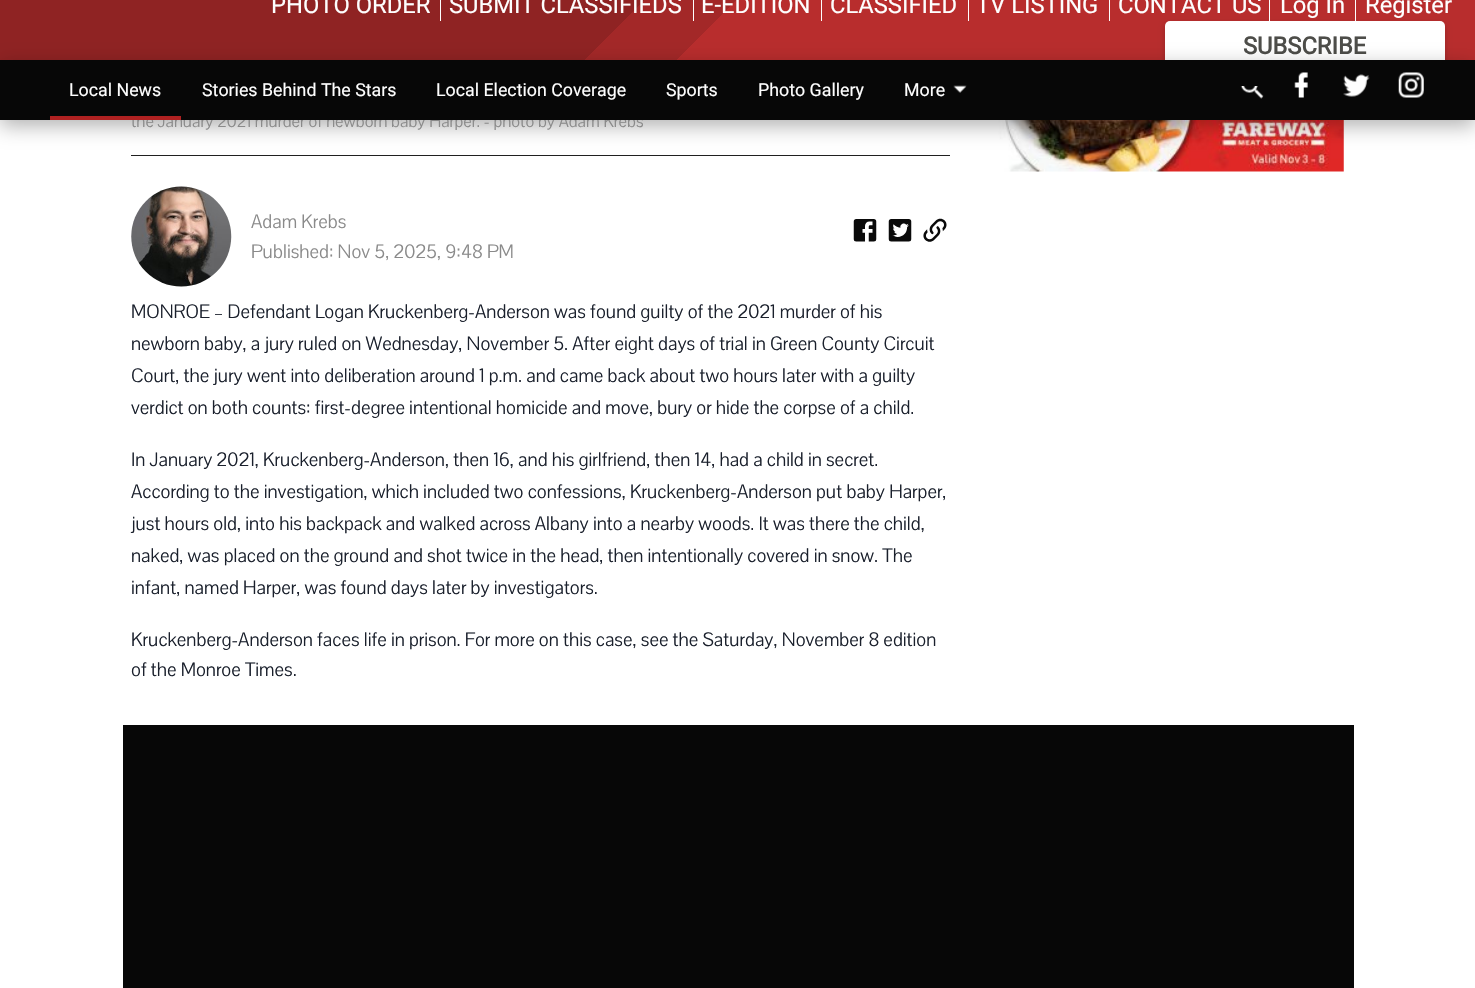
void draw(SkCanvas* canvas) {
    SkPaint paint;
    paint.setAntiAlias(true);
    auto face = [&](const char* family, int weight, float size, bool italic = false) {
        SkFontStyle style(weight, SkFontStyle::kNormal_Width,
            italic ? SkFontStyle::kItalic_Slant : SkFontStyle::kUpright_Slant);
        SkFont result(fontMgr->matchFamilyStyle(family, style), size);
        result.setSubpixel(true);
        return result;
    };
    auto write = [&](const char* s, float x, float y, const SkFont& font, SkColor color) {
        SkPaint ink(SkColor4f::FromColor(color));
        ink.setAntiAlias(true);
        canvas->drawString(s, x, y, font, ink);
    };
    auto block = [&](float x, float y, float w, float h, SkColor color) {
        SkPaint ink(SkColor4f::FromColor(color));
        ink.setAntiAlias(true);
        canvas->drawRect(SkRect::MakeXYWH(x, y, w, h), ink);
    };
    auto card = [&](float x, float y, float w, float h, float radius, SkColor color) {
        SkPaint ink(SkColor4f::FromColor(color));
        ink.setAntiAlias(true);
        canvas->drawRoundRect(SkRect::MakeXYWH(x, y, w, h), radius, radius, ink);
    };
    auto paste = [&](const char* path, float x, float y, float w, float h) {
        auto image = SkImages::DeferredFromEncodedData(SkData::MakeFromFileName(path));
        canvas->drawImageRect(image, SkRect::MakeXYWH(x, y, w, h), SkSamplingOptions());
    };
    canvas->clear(SK_ColorWHITE);
    {
        const SkColor colors[] = {SkColorSetRGB(143, 35, 35), SkColorSetRGB(163, 40, 40), SkColorSetRGB(163, 40, 40), SkColorSetRGB(184, 45, 45)};
        const float stops[] = {0.42f, 0.42f, 0.48f, 0.48f};
        const SkPoint ends[] = {{354, -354}, {1121, 414}};
        paint.setShader(SkGradientShader::MakeLinear(ends, colors, stops, 4, SkTileMode::kClamp));
        paint.setAlpha(255);
    }
    canvas->drawRect(SkRect::MakeXYWH(0, 0, 1475, 60), paint);
    auto kFont1 = face("Roboto", 400, 23.75f);
    write("PHOTO ORDER", 271, 13, kFont1, SkColorSetRGB(254, 254, 254));
    block(440, 0, 1, 21, SkColorSetRGB(254, 254, 254));
    write("SUBMIT CLASSIFIEDS", 449, 13, kFont1, SkColorSetRGB(254, 254, 254));
    block(693, 0, 1, 21, SkColorSetRGB(254, 254, 254));
    write("E-EDITION", 701, 13, kFont1, SkColorSetRGB(254, 254, 254));
    block(821, 0, 1, 21, SkColorSetRGB(254, 254, 254));
    write("CLASSIFIED", 830, 13, kFont1, SkColorSetRGB(254, 254, 254));
    block(968, 0, 1, 21, SkColorSetRGB(254, 254, 254));
    write("TV LISTING", 976, 13, kFont1, SkColorSetRGB(254, 254, 254));
    paint.setShader(nullptr);
    paint.setColor(SkColorSetARGB(51, 0, 0, 0));
    paint.setMaskFilter(SkMaskFilter::MakeBlur(kNormal_SkBlurStyle, 3));
    canvas->drawRoundRect(SkRect::MakeXYWH(1165, 24, 280, 50), 5, 5, paint);
    paint.setMaskFilter(nullptr);
    block(1269, 0, 1, 21, SkColorSetRGB(254, 254, 254));
    block(1109, 0, 1, 21, SkColorSetRGB(254, 254, 254));
    write("CONTACT US", 1118, 13, kFont1, SkColorSetRGB(254, 254, 254));
    write("Log In", 1280, 13, kFont1, SkColorSetRGB(254, 254, 254));
    block(1355, 0, 1, 21, SkColorSetRGB(254, 254, 254));
    write("Register", 1365, 13, kFont1, SkColorSetRGB(254, 254, 254));
    card(1165, 21, 280, 50, 5, SK_ColorWHITE);
    auto kFont2 = face("Roboto", 700, 23.75f);
    write("SUBSCRIBE", 1243, 54, kFont2, SkColorSetRGB(77, 77, 73));
    block(131, 155, 819, 1, SkColorSetRGB(32, 32, 32));
    paste("pic10.png", 969, 120, 375, 52);
    paint.setColor(SkColorSetARGB(77, 0, 0, 0));
    paint.setMaskFilter(SkMaskFilter::MakeBlur(kNormal_SkBlurStyle, 10));
    canvas->drawRect(SkRect::MakeXYWH(0, 66, 1475, 60), paint);
    paint.setMaskFilter(nullptr);
    auto kFont3 = face("Pavanam", 400, 17.8f);
    write("the January 2021 murder of newborn baby Harper. - photo by Adam Krebs", 131, 127, kFont3, SkColorSetRGB(138, 138, 138));
    block(0, 60, 1475, 60, SkColorSetRGB(7, 7, 7));
    block(50, 116, 131, 4, SkColorSetRGB(175, 33, 33));
    auto kFont4 = face("Roboto", 400, 17.8f);
    write("Local News", 69, 96, kFont4, SkColorSetRGB(254, 254, 254));
    write("Stories Behind The Stars", 202, 96, kFont4, SkColorSetRGB(254, 254, 254));
    write("Local Election Coverage", 436, 96, kFont4, SkColorSetRGB(254, 254, 254));
    write("Sports", 666, 96, kFont4, SkColorSetRGB(254, 254, 254));
    write("Photo Gallery", 758, 96, kFont4, SkColorSetRGB(254, 254, 254));
    write("More", 904, 96, kFont4, SkColorSetRGB(254, 254, 254));
    paste("pic1.png", 953, 85, 14, 8);
    paste("pic2.png", 1240, 86, 24, 13);
    paste("pic3.png", 1294, 72, 14, 26);
    paste("pic4.png", 1343, 74, 27, 23);
    paste("pic5.png", 1398, 72, 26, 26);
    paste("pic6.png", 131, 186, 101, 101);
    auto kFont5 = face("Pavanam", 400, 20);
    write("Adam Krebs", 251, 228, kFont5, SkColorSetRGB(138, 138, 138));
    write("Published: Nov 5, 2025, 9:48 PM", 251, 258, kFont5, SkColorSetRGB(138, 138, 138));
    paste("pic7.png", 853, 219, 24, 23);
    paste("pic8.png", 888, 219, 24, 23);
    paste("pic9.png", 923, 218, 24, 24);
    write("MONROE – Defendant Logan Kruckenberg-Anderson was found guilty of the 2021 murder of his", 131, 318, kFont5, SkColorSetRGB(26, 32, 44));
    write("newborn baby, a jury ruled on Wednesday, November 5. After eight days of trial in Green County Circuit", 131, 350, kFont5, SkColorSetRGB(26, 32, 44));
    write("Court, the jury went into deliberation around 1 p.m. and came back about two hours later with a guilty", 131, 382, kFont5, SkColorSetRGB(26, 32, 44));
    write("verdict on both counts: first-degree intentional homicide and move, bury or hide the corpse of a child.", 131, 414, kFont5, SkColorSetRGB(26, 32, 44));
    write("In January 2021, Kruckenberg-Anderson, then 16, and his girlfriend, then 14, had a child in secret.", 131, 466, kFont5, SkColorSetRGB(26, 32, 44));
    write("According to the investigation, which included two confessions, Kruckenberg-Anderson put baby Harper,", 131, 498, kFont5, SkColorSetRGB(26, 32, 44));
    write("just hours old, into his backpack and walked across Albany into a nearby woods. It was there the child,", 131, 530, kFont5, SkColorSetRGB(26, 32, 44));
    write("naked, was placed on the ground and shot twice in the head, then intentionally covered in snow. The", 131, 562, kFont5, SkColorSetRGB(26, 32, 44));
    write("infant, named Harper, was found days later by investigators.", 131, 594, kFont5, SkColorSetRGB(26, 32, 44));
    write("Kruckenberg-Anderson faces life in prison. For more on this case, see the Saturday, November 8 edition", 131, 646, kFont5, SkColorSetRGB(26, 32, 44));
    write("of the Monroe Times.", 131, 676, kFont5, SkColorSetRGB(26, 32, 44));
    block(123, 725, 1231, 263, SkColorSetRGB(7, 7, 7));
}
